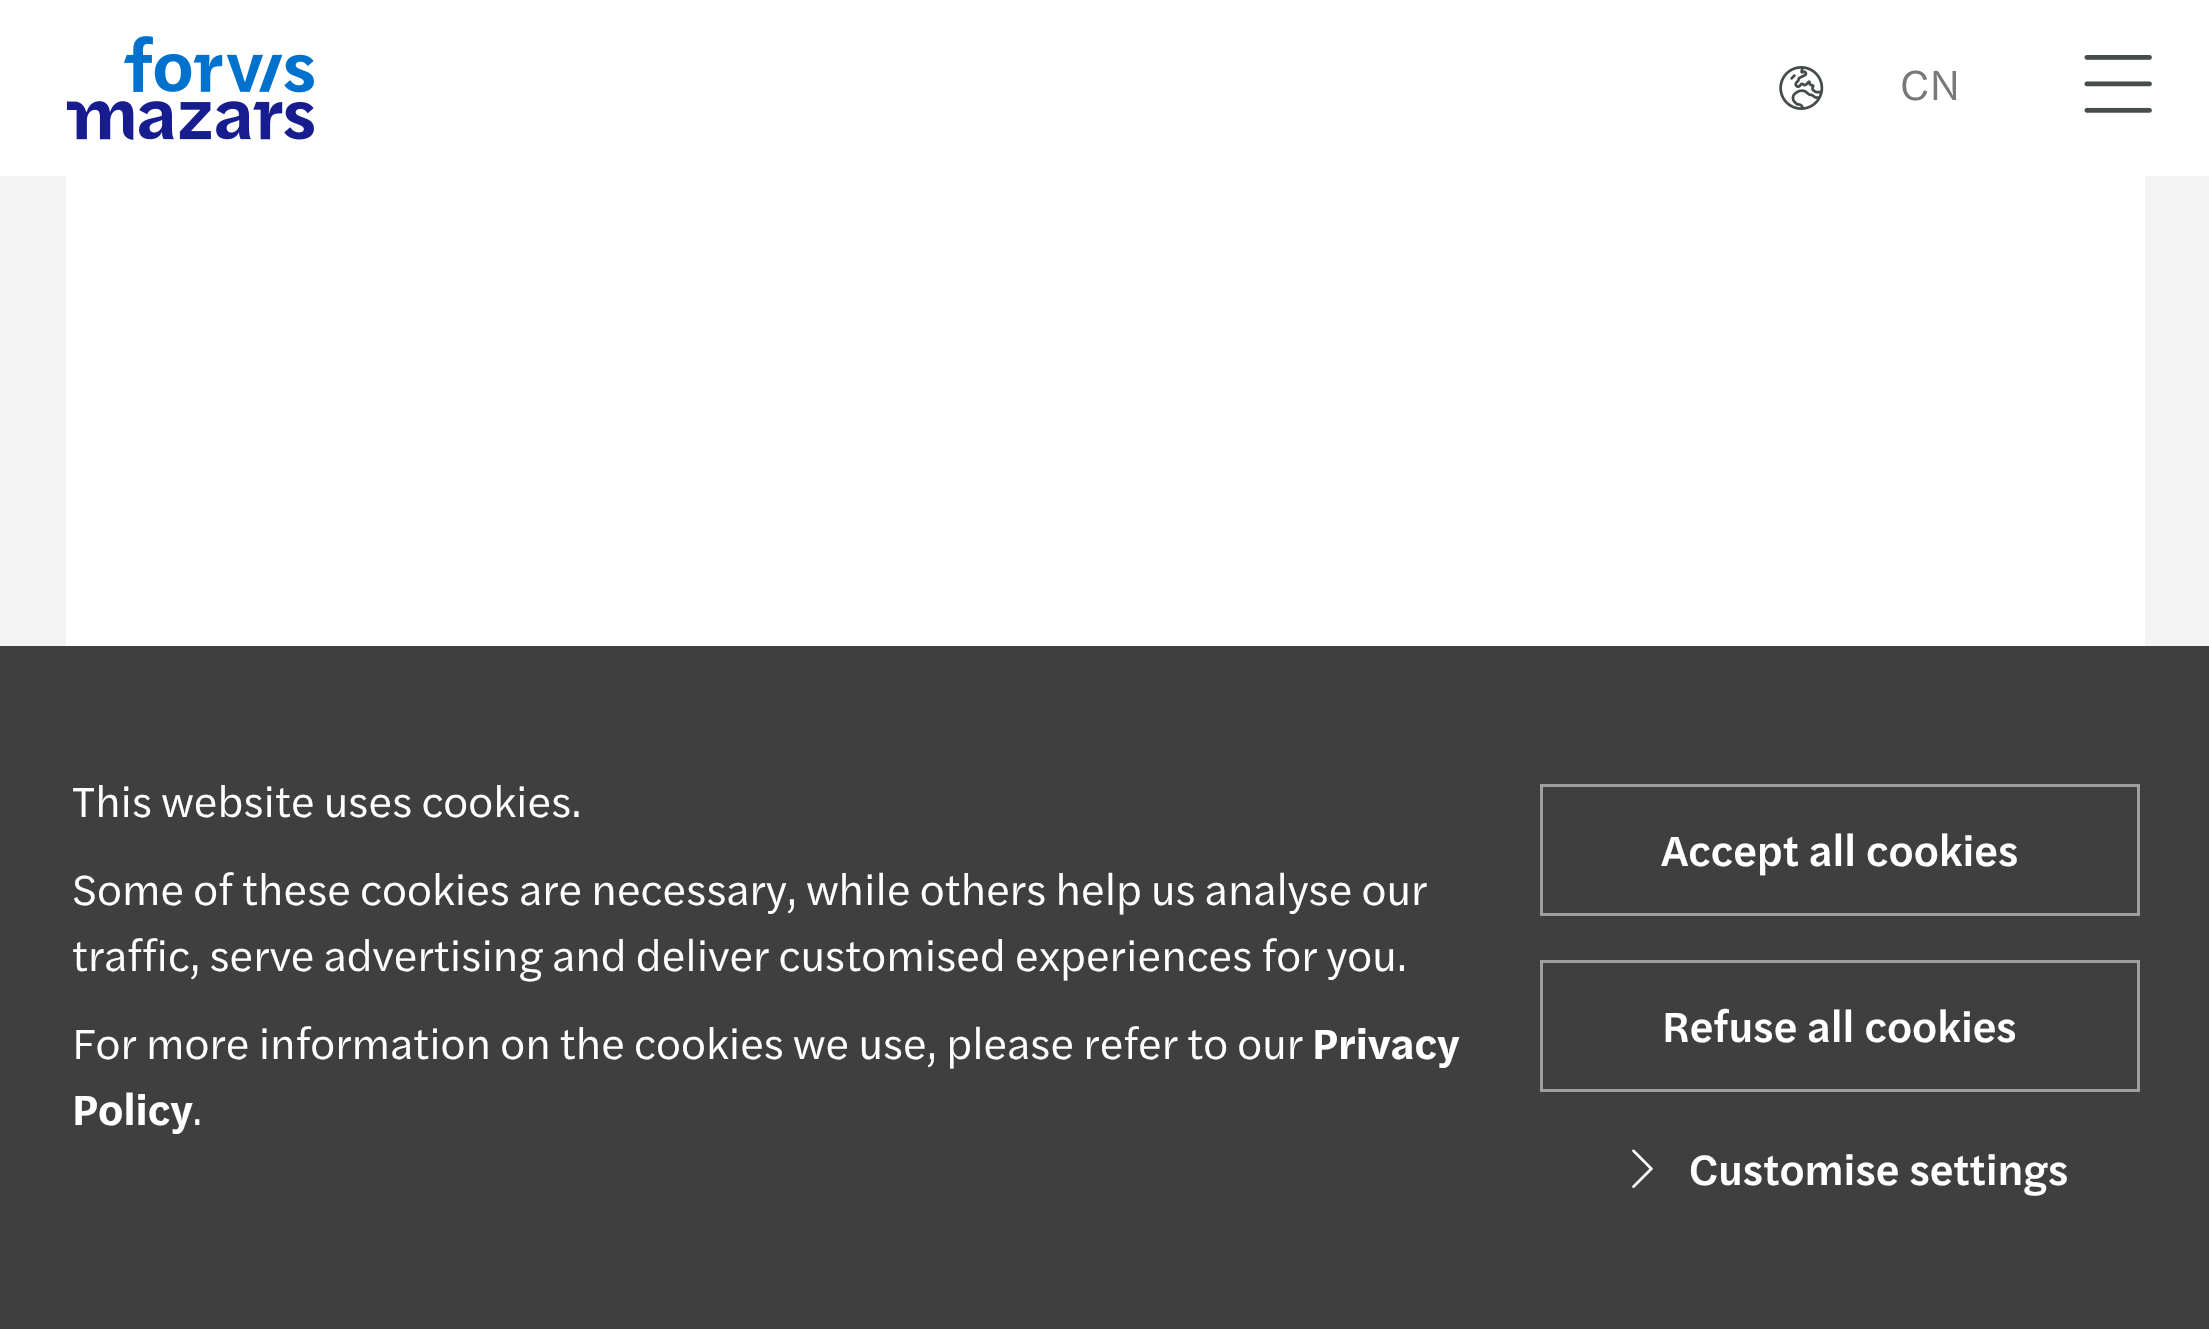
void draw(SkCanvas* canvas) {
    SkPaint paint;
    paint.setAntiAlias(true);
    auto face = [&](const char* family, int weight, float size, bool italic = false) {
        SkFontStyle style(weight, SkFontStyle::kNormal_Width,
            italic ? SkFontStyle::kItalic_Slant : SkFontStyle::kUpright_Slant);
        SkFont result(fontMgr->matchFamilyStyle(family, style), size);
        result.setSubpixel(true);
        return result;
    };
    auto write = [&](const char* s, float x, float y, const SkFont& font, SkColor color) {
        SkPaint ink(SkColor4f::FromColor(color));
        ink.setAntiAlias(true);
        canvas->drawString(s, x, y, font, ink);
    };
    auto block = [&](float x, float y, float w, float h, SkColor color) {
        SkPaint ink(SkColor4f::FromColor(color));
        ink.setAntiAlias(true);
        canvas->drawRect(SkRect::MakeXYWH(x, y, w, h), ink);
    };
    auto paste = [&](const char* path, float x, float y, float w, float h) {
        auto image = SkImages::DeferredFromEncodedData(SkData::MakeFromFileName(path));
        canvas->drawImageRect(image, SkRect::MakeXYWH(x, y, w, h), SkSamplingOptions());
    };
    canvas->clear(SkColorSetRGB(244, 244, 244));
    block(0, 0, 2209, 176, SK_ColorWHITE);
    paste("pic1.png", 66, 36, 248, 104);
    paste("pic2.png", 1779, 66, 45, 44);
    auto kFont1 = face("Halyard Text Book", 400, 44);
    write("CN", 1900, 100, kFont1, SkColorSetRGB(120, 120, 120));
    paste("pic3.png", 2084, 55, 68, 58);
    block(66, 176, 2079, 470, SK_ColorWHITE);
    block(0, 646, 2209, 683, SkColorSetRGB(63, 63, 63));
    write("This website uses cookies.", 72, 817, kFont1, SK_ColorWHITE);
    write("Some of these cookies are necessary, while others help us analyse our", 72, 905, kFont1, SK_ColorWHITE);
    write("traffic, serve advertising and deliver customised experiences for you.", 72, 971, kFont1, SK_ColorWHITE);
    write("For more information on the cookies we use, please refer to our", 72, 1059, kFont1, SK_ColorWHITE);
    auto kFont2 = face("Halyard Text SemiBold", 600, 44);
    write("Privacy", 1312, 1059, kFont2, SK_ColorWHITE);
    write("Policy", 72, 1125, kFont2, SK_ColorWHITE);
    write(".", 192, 1125, kFont1, SK_ColorWHITE);
    paint.setStyle(SkPaint::kStroke_Style);
    paint.setStrokeWidth(3);
    paint.setColor(SkColorSetRGB(159, 159, 159));
    canvas->drawRect(SkRect::MakeXYWH(1541.5f, 785.5f, 597, 129), paint);
    auto kFont3 = face("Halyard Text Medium", 500, 44);
    write("Accept all cookies", 1661, 866, kFont3, SK_ColorWHITE);
    canvas->drawRect(SkRect::MakeXYWH(1541.5f, 961.5f, 597, 129), paint);
    write("Refuse all cookies", 1662, 1042, kFont3, SK_ColorWHITE);
    paste("pic4.png", 1632, 1149, 21, 39);
    write("Customise settings", 1689, 1185, kFont3, SK_ColorWHITE);
}
